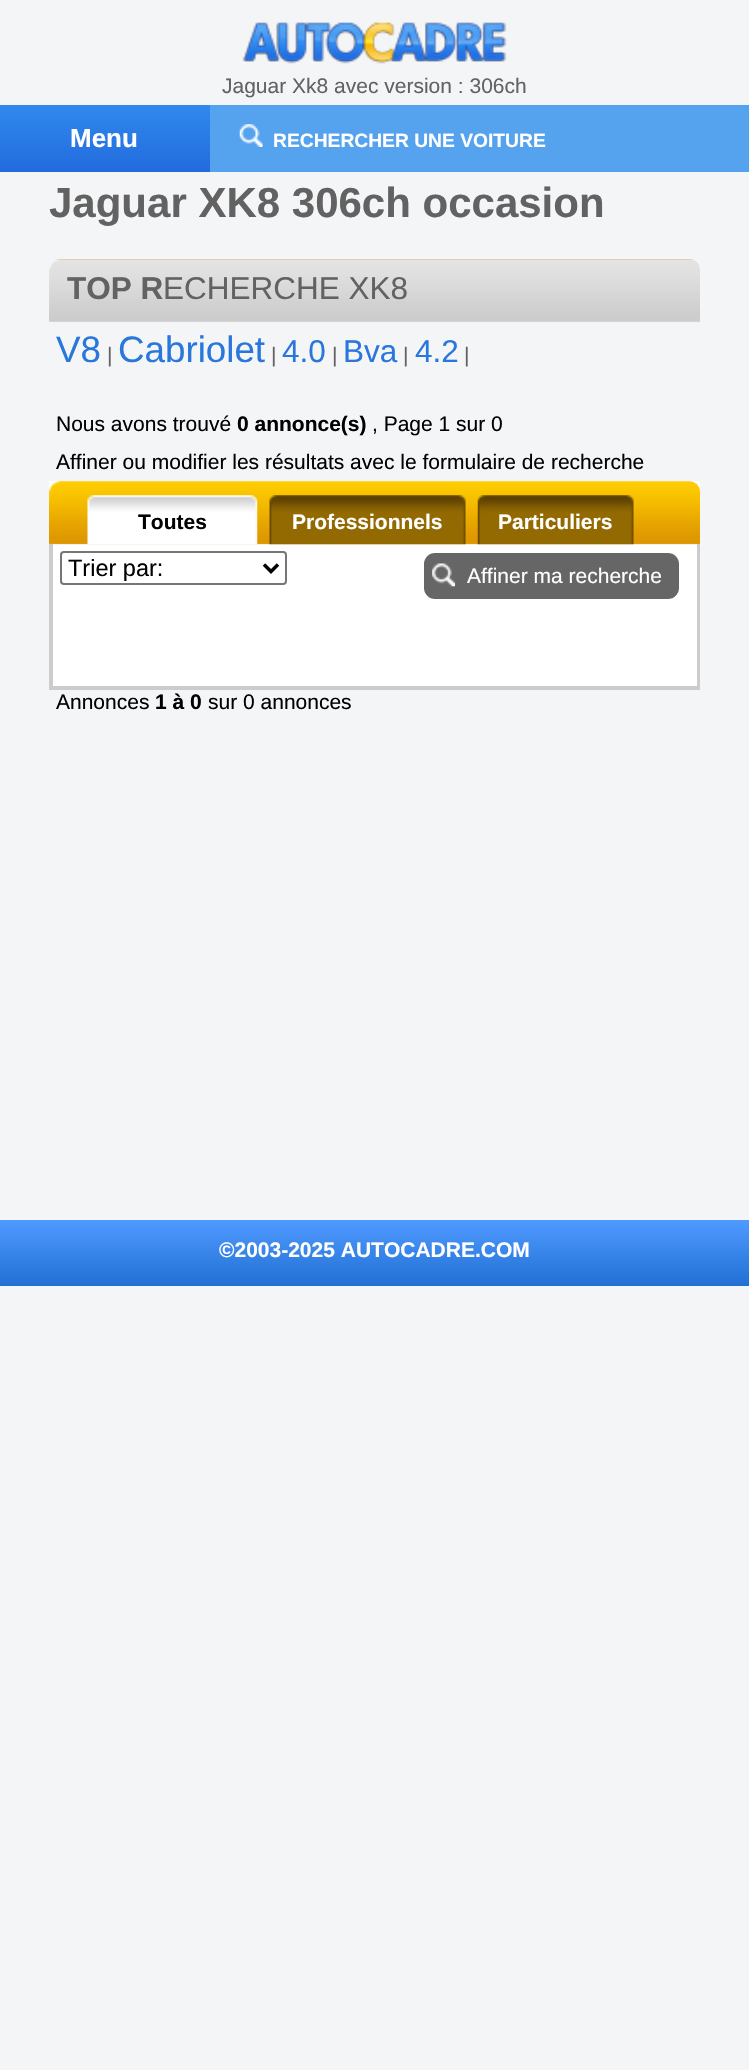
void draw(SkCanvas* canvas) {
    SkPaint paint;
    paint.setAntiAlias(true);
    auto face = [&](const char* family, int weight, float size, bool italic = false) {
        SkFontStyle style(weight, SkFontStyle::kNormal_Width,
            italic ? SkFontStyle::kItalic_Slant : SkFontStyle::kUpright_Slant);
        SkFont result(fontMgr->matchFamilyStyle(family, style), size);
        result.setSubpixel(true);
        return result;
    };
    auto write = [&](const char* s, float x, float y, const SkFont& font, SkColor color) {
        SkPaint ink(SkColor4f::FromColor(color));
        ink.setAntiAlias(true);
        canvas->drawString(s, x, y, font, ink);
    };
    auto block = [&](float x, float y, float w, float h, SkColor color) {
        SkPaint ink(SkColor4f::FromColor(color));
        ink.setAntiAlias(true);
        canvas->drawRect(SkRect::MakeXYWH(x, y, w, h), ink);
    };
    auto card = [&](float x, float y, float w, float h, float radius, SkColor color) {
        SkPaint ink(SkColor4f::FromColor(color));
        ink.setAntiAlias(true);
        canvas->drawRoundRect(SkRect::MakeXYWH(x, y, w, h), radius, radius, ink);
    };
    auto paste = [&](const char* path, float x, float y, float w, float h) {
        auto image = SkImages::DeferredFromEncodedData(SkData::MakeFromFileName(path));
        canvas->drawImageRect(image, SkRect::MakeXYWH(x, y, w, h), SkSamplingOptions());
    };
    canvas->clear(SkColorSetRGB(244, 245, 247));
    paste("pic1.png", 242, 22, 265, 42);
    auto kFont1 = face("Liberation Sans", 400, 21);
    write("Jaguar Xk8 avec version : 306ch", 222, 93, kFont1, SkColorSetRGB(98, 98, 98));
    {
        const SkColor colors[] = {SkColorSetRGB(48, 137, 237), SkColorSetRGB(34, 107, 222)};
        const float stops[] = {0, 1};
        const SkPoint ends[] = {{105, 105}, {105, 172}};
        paint.setShader(SkGradientShader::MakeLinear(ends, colors, stops, 2, SkTileMode::kClamp));
        paint.setAlpha(255);
    }
    canvas->drawRect(SkRect::MakeXYWH(0, 105, 210, 67), paint);
    auto kFont2 = face("Liberation Sans", 700, 26);
    write("Menu", 70, 147, kFont2, SK_ColorWHITE);
    block(210, 105, 539, 67, SkColorSetRGB(85, 162, 239));
    paste("pic2.png", 239, 124, 24, 23);
    auto kFont3 = face("Liberation Sans", 700, 19.25f);
    write("RECHERCHER UNE VOITURE", 273, 147, kFont3, SK_ColorWHITE);
    auto kFont4 = face("Liberation Sans", 700, 42);
    write("Jaguar XK8 306ch occasion", 49, 217, kFont4, SkColorSetRGB(98, 98, 98));
    paste("pic3.png", 49, 259, 651, 63);
    auto kFont5 = face("Liberation Sans", 700, 31.5f);
    write("TOP R", 67, 299, kFont5, SkColorSetRGB(98, 98, 98));
    auto kFont6 = face("Liberation Sans", 400, 31.5f);
    write("ECHERCHE XK8", 163, 299, kFont6, SkColorSetRGB(98, 98, 98));
    auto kFont7 = face("Liberation Sans", 400, 36.75f);
    write("V8", 56, 362, kFont7, SkColorSetRGB(41, 119, 220));
    write("|", 107, 362, kFont1, SkColorSetRGB(98, 98, 98));
    write("Cabriolet", 118, 362, kFont7, SkColorSetRGB(41, 119, 220));
    write("|", 271, 362, kFont1, SkColorSetRGB(98, 98, 98));
    write("4.0", 282, 362, kFont6, SkColorSetRGB(41, 119, 220));
    write("|", 332, 362, kFont1, SkColorSetRGB(98, 98, 98));
    write("Bva", 343, 362, kFont6, SkColorSetRGB(41, 119, 220));
    write("|", 403, 362, kFont1, SkColorSetRGB(98, 98, 98));
    write("4.2", 415, 362, kFont6, SkColorSetRGB(41, 119, 220));
    write("|", 464, 362, kFont1, SkColorSetRGB(98, 98, 98));
    write("Nous avons trouvé", 56, 431, kFont1, SkColorSetRGB(1, 1, 1));
    auto kFont8 = face("Liberation Sans", 700, 21);
    write("0 annonce(s)", 237, 431, kFont8, SkColorSetRGB(1, 1, 1));
    write(", Page 1 sur 0", 372, 431, kFont1, SkColorSetRGB(1, 1, 1));
    write("Affiner ou modifier les résultats avec le formulaire de recherche", 56, 469, kFont1, SkColorSetRGB(1, 1, 1));
    block(49, 481, 651, 118, SK_ColorWHITE);
    paste("pic4.png", 49, 481, 651, 64);
    paste("pic5.png", 87, 495, 171, 50);
    write("Toutes", 138, 529, kFont8, SkColorSetRGB(1, 1, 1));
    paste("pic6.png", 269, 495, 197, 50);
    write("Professionnels", 292, 529, kFont8, SK_ColorWHITE);
    paste("pic7.png", 477, 495, 157, 50);
    write("Particuliers", 498, 529, kFont8, SK_ColorWHITE);
    block(697, 544, 3, 146, SkColorSetRGB(204, 204, 204));
    block(49, 544, 4, 55, SkColorSetRGB(204, 204, 204));
    paint.setStyle(SkPaint::kStroke_Style);
    paint.setStrokeWidth(2);
    paint.setShader(nullptr);
    paint.setColor(SkColorSetRGB(118, 118, 118));
    canvas->drawRoundRect(SkRect::MakeXYWH(61, 552, 225, 32), 3, 3, paint);
    paint.setStrokeWidth(3.5f);
    paint.setColor(SK_ColorBLACK);
    canvas->drawPath(SkPathBuilder().moveTo(264, 564.5f).lineTo(271, 571.5f).lineTo(278, 564.5f).detach(), paint);
    auto kFont9 = face("Liberation Sans", 400, 23.5f);
    write("Trier par:", 68, 576, kFont9, SkColorSetRGB(1, 1, 1));
    card(424, 553, 255, 46, 11, SkColorSetRGB(102, 102, 102));
    paste("pic8.png", 432, 563, 23, 24);
    write("Affiner ma recherche", 467, 583, kFont1, SK_ColorWHITE);
    block(53, 599, 644, 87, SK_ColorWHITE);
    block(49, 686, 651, 4, SkColorSetRGB(204, 204, 204));
    block(49, 599, 4, 91, SkColorSetRGB(204, 204, 204));
    write("Annonces", 56, 709, kFont1, SkColorSetRGB(1, 1, 1));
    write("1 à 0", 155, 709, kFont8, SkColorSetRGB(1, 1, 1));
    write("sur 0 annonces", 208, 709, kFont1, SkColorSetRGB(1, 1, 1));
    paint.setStyle(SkPaint::kFill_Style);
    {
        const SkColor colors[] = {SkColorSetRGB(79, 154, 254), SkColorSetRGB(34, 112, 213)};
        const float stops[] = {0, 1};
        const SkPoint ends[] = {{375, 1220}, {375, 1286}};
        paint.setShader(SkGradientShader::MakeLinear(ends, colors, stops, 2, SkTileMode::kClamp));
        paint.setAlpha(255);
    }
    canvas->drawRect(SkRect::MakeXYWH(0, 1220, 749, 66), paint);
    write("©2003-2025 AUTOCADRE.COM", 219, 1257, kFont8, SK_ColorWHITE);
}
